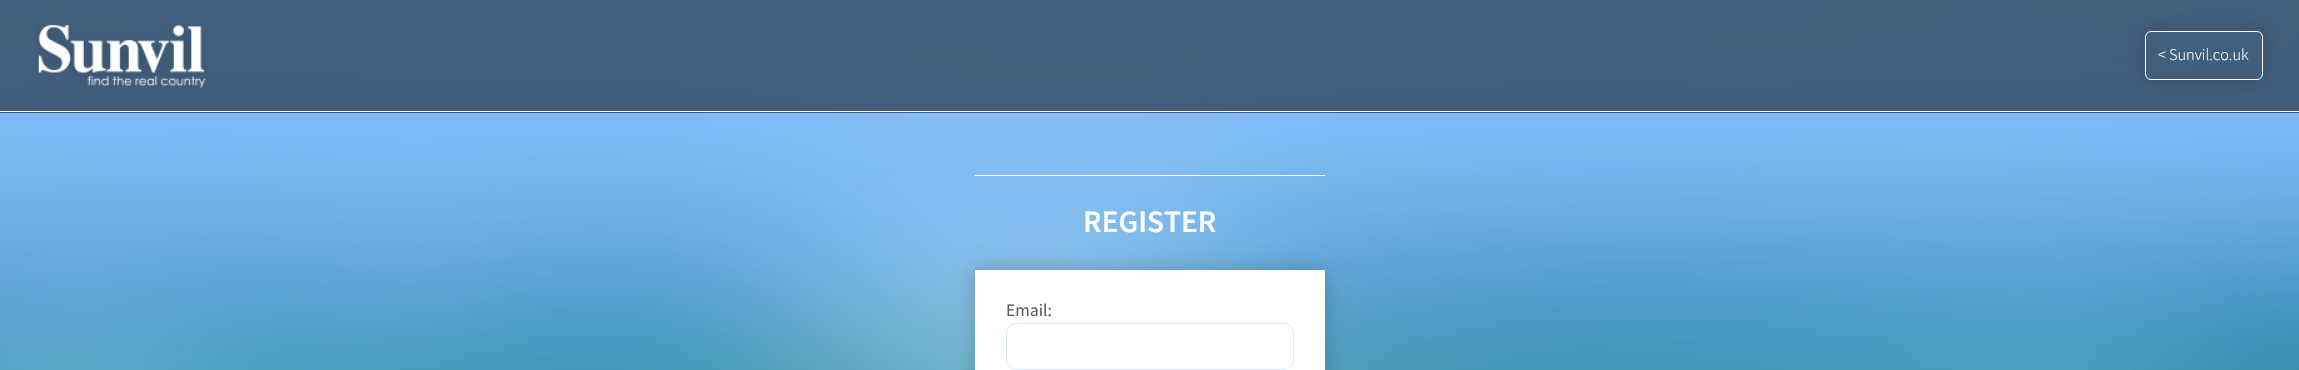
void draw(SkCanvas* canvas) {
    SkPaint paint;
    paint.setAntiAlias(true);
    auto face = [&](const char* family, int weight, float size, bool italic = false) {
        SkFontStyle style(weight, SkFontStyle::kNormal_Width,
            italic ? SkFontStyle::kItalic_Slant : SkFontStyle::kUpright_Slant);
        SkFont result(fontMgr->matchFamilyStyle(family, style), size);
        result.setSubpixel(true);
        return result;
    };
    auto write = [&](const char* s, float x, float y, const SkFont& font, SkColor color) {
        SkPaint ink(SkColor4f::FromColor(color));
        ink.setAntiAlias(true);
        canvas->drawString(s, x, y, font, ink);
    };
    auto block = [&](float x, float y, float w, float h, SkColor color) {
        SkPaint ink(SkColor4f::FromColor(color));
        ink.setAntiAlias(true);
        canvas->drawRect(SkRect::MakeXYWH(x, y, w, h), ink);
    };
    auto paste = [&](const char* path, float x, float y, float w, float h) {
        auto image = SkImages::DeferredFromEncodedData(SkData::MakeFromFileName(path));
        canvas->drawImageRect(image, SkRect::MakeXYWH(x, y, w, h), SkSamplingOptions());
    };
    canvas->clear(SK_ColorWHITE);
    paste("pic1.png", 0, 0, 2299, 370);
    block(0, 0, 2299, 113, SkColorSetARGB(128, 0, 0, 0));
    block(0, 111, 2299, 1, SK_ColorWHITE);
    paste("pic2.png", 35, 23, 172, 65);
    canvas->save();
    canvas->clipPath(SkPathBuilder(SkPathFillType::kEvenOdd).moveTo(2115, 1).lineTo(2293, 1).lineTo(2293, 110).lineTo(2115, 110).close().moveTo(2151, 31).lineTo(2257, 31).cubicTo(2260.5f, 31, 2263, 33.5f, 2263, 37).lineTo(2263, 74).cubicTo(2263, 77.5f, 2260.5f, 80, 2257, 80).lineTo(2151, 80).cubicTo(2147.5f, 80, 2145, 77.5f, 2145, 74).lineTo(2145, 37).cubicTo(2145, 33.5f, 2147.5f, 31, 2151, 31).close().detach(), true);
    paint.setColor(SkColorSetARGB(51, 0, 0, 0));
    paint.setMaskFilter(SkMaskFilter::MakeBlur(kNormal_SkBlurStyle, 9.5f));
    canvas->drawRoundRect(SkRect::MakeXYWH(2145, 31, 118, 49), 6, 6, paint);
    paint.setMaskFilter(nullptr);
    canvas->restore();
    paint.setStyle(SkPaint::kStroke_Style);
    paint.setStrokeWidth(1);
    paint.setColor(SK_ColorWHITE);
    canvas->drawRoundRect(SkRect::MakeXYWH(2145.5f, 31.5f, 117, 48), 5.5f, 5.5f, paint);
    auto kFont1 = face("Source Sans Pro", 300, 16.25f);
    write("< Sunvil.co.uk", 2158, 60, kFont1, SK_ColorWHITE);
    block(975, 175, 350, 1, SK_ColorWHITE);
    auto kFont2 = face("Source Sans Pro", 600, 31.25f);
    write("REGISTER", 1083, 232, kFont2, SK_ColorWHITE);
    paint.setStyle(SkPaint::kFill_Style);
    paint.setColor(SkColorSetARGB(51, 0, 0, 0));
    paint.setMaskFilter(SkMaskFilter::MakeBlur(kNormal_SkBlurStyle, 9.5f));
    canvas->drawRect(SkRect::MakeXYWH(975, 270, 350, 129), paint);
    paint.setMaskFilter(nullptr);
    block(975, 270, 350, 100, SK_ColorWHITE);
    auto kFont3 = face("Source Sans Pro", 400, 17.5f);
    write("Email:", 1006, 316, kFont3, SkColorSetRGB(89, 90, 90));
    paint.setStyle(SkPaint::kStroke_Style);
    paint.setColor(SkColorSetRGB(216, 235, 252));
    canvas->drawRoundRect(SkRect::MakeXYWH(1006.5f, 323.5f, 287, 46), 9.5f, 9.5f, paint);
}
